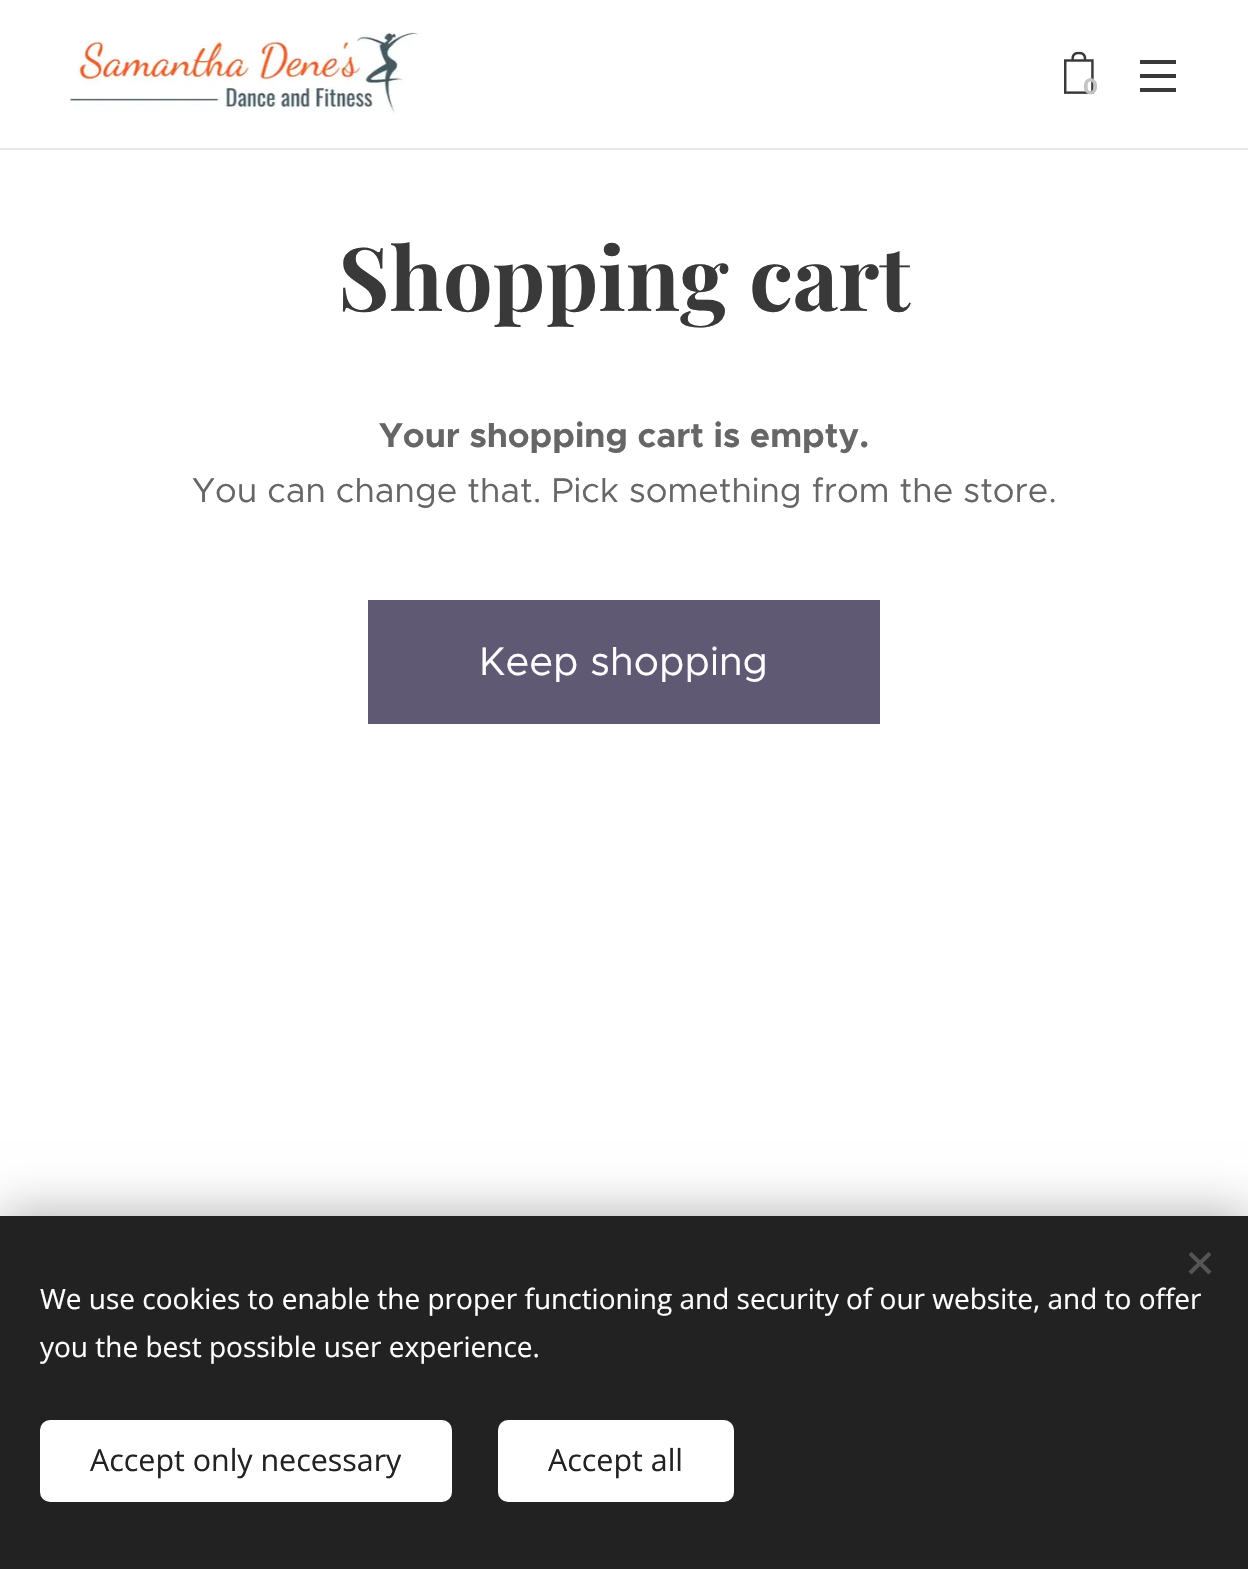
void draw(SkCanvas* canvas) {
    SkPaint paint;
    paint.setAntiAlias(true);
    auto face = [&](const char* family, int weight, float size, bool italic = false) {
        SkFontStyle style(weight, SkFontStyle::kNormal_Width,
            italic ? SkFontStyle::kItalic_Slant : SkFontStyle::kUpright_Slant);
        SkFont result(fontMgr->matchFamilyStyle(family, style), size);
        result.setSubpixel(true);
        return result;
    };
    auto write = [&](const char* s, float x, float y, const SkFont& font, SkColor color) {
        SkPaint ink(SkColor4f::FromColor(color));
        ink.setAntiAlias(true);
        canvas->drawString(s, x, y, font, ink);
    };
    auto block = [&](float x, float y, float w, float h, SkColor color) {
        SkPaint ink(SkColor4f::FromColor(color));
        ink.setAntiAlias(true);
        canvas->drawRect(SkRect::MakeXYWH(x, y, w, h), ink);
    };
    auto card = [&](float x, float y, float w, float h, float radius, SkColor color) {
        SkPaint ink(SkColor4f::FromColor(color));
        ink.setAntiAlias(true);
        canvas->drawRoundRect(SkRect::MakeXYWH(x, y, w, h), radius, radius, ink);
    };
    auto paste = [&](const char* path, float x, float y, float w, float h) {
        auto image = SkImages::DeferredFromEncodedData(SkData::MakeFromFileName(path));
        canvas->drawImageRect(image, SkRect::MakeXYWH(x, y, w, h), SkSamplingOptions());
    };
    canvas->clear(SK_ColorWHITE);
    block(0, 148, 1248, 2, SkColorSetRGB(232, 232, 232));
    paste("pic1.png", 68, 31, 351, 83);
    paste("pic2.png", 1064, 51, 30, 43);
    auto kFont1 = face("Montserrat", 700, 22);
    write("0", 1083, 94, kFont1, SkColorSetRGB(196, 196, 196));
    block(1140, 74, 36, 4, SkColorSetRGB(57, 57, 57));
    block(1140, 60, 36, 4, SkColorSetRGB(57, 57, 57));
    block(1140, 88, 36, 4, SkColorSetRGB(57, 57, 57));
    auto kFont2 = face("Playfair Display", 700, 88);
    write("Shopping cart", 338, 311, kFont2, SkColorSetRGB(57, 57, 57));
    auto kFont3 = face("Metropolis", 700, 34.4f);
    write("Your shopping cart is empty.", 379, 447, kFont3, SkColorSetRGB(102, 102, 102));
    auto kFont4 = face("Metropolis", 400, 34.4f);
    write("You can change that. Pick something from the store.", 192, 502, kFont4, SkColorSetRGB(102, 102, 102));
    block(368, 600, 512, 124, SkColorSetRGB(95, 89, 116));
    auto kFont5 = face("Metropolis", 400, 40);
    write("Keep shopping", 479, 675, kFont5, SK_ColorWHITE);
    paint.setColor(SkColorSetARGB(84, 0, 0, 0));
    paint.setMaskFilter(SkMaskFilter::MakeBlur(kNormal_SkBlurStyle, 25));
    canvas->drawRect(SkRect::MakeXYWH(0, 1216, 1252, 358), paint);
    paint.setMaskFilter(nullptr);
    block(0, 1216, 1248, 353, SkColorSetRGB(34, 34, 34));
    paint.setColor(SkColorSetRGB(85, 85, 85));
    canvas->drawPath(SkPathBuilder().moveTo(1188.5f, 1271.5f).lineTo(1208.5f, 1252).lineTo(1211.5f, 1254.5f).lineTo(1191.5f, 1274.5f).close().detach(), paint);
    canvas->drawPath(SkPathBuilder().moveTo(1191.5f, 1252).lineTo(1211.5f, 1271.5f).lineTo(1208.5f, 1274.5f).lineTo(1188.5f, 1254.5f).close().detach(), paint);
    auto kFont6 = face("Open Sans", 400, 28);
    write("We use cookies to enable the proper functioning and security of our website, and to offer", 40, 1309, kFont6, SK_ColorWHITE);
    write("you the best possible user experience.", 40, 1357, kFont6, SK_ColorWHITE);
    card(40, 1420, 412, 82, 10, SK_ColorWHITE);
    auto kFont7 = face("Open Sans", 400, 30.4f);
    write("Accept only necessary", 90, 1471, kFont7, SkColorSetRGB(34, 34, 34));
    card(498, 1420, 236, 82, 10, SK_ColorWHITE);
    write("Accept all", 548, 1471, kFont7, SkColorSetRGB(34, 34, 34));
}
